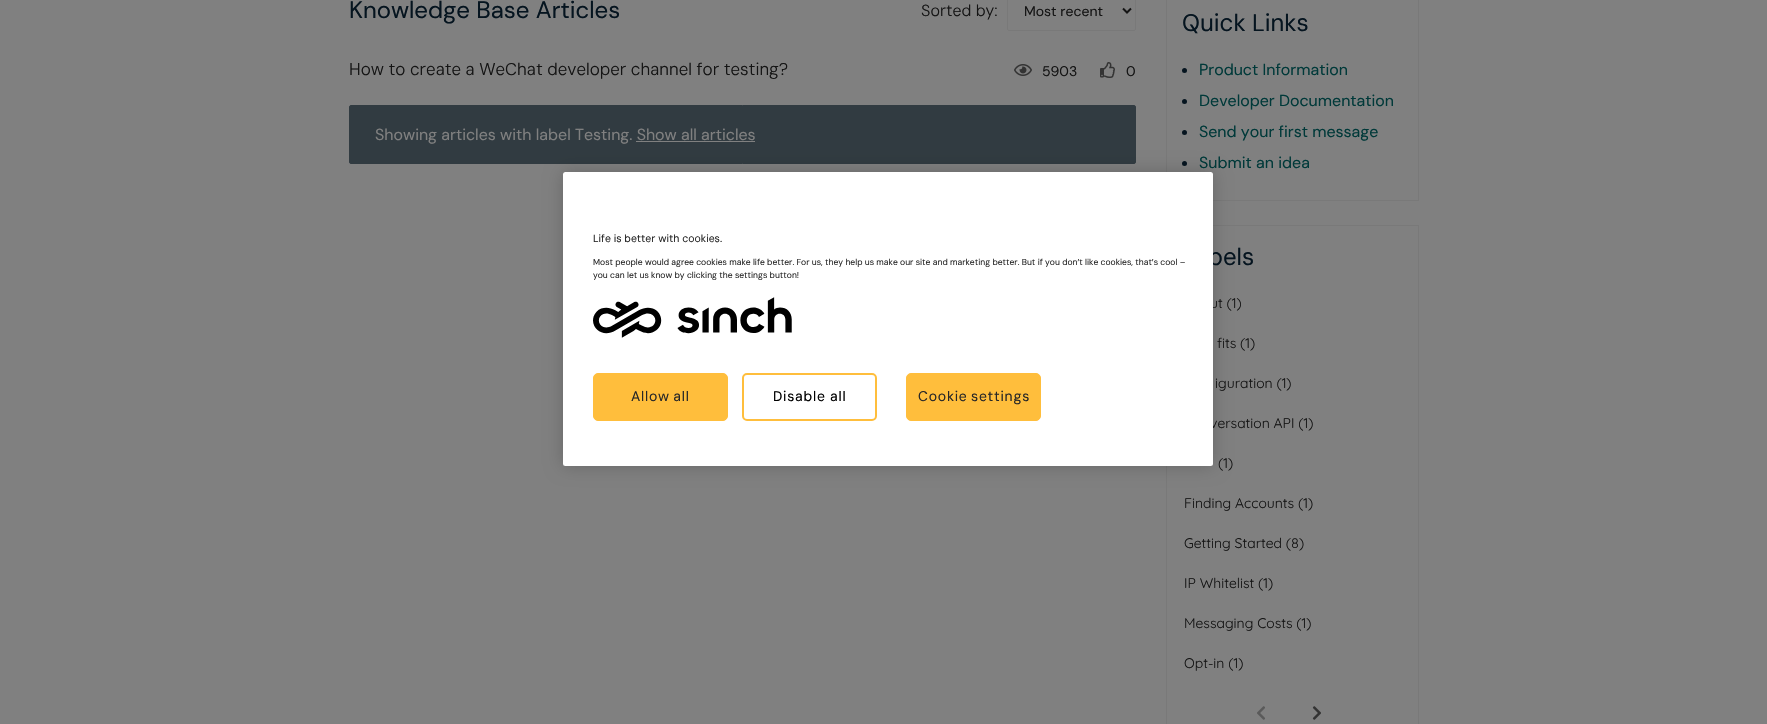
void draw(SkCanvas* canvas) {
    SkPaint paint;
    paint.setAntiAlias(true);
    auto face = [&](const char* family, int weight, float size, bool italic = false) {
        SkFontStyle style(weight, SkFontStyle::kNormal_Width,
            italic ? SkFontStyle::kItalic_Slant : SkFontStyle::kUpright_Slant);
        SkFont result(fontMgr->matchFamilyStyle(family, style), size);
        result.setSubpixel(true);
        return result;
    };
    auto write = [&](const char* s, float x, float y, const SkFont& font, SkColor color) {
        SkPaint ink(SkColor4f::FromColor(color));
        ink.setAntiAlias(true);
        canvas->drawString(s, x, y, font, ink);
    };
    auto writeSpaced = [&](const char* s, float x, float y, const SkFont& font, const SkPaint& ink, float letter, float word) {
        std::vector<SkGlyphID> glyphs(font.countText(s, strlen(s), SkTextEncoding::kUTF8));
        std::vector<float> xs(glyphs.size());
        font.textToGlyphs(s, strlen(s), SkTextEncoding::kUTF8, glyphs);
        font.getXPos(glyphs, xs, x);
        float extra = 0;
        for (size_t i = 0; i < glyphs.size(); i++) {
            xs[i] += extra;
            extra += letter + word * (glyphs[i] == font.unicharToGlyph(' '));
        }
        canvas->drawTextBlob(SkTextBlob::MakeFromPosHGlyphs(glyphs, xs, y, font), 0, 0, ink);
    };
    auto block = [&](float x, float y, float w, float h, SkColor color) {
        SkPaint ink(SkColor4f::FromColor(color));
        ink.setAntiAlias(true);
        canvas->drawRect(SkRect::MakeXYWH(x, y, w, h), ink);
    };
    auto card = [&](float x, float y, float w, float h, float radius, SkColor color) {
        SkPaint ink(SkColor4f::FromColor(color));
        ink.setAntiAlias(true);
        canvas->drawRoundRect(SkRect::MakeXYWH(x, y, w, h), radius, radius, ink);
    };
    auto paste = [&](const char* path, float x, float y, float w, float h) {
        auto image = SkImages::DeferredFromEncodedData(SkData::MakeFromFileName(path));
        canvas->drawImageRect(image, SkRect::MakeXYWH(x, y, w, h), SkSamplingOptions());
    };
    canvas->clear(SkColorSetRGB(128, 128, 128));
    auto kFont1 = face("DM Sans", 400, 24);
    write("Knowledge Base Articles", 349, 18, kFont1, SkColorSetRGB(5, 20, 31));
    auto kFont2 = face("DM Sans", 300, 16);
    write("Sorted by:", 921, 16, kFont2, SkColorSetRGB(20, 20, 20));
    paint.setStyle(SkPaint::kStroke_Style);
    paint.setStrokeWidth(1);
    paint.setColor(SkColorSetRGB(121, 121, 121));
    canvas->drawRoundRect(SkRect::MakeXYWH(1007.5f, -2.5f, 128, 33), 1.5f, 1.5f, paint);
    paint.setStrokeWidth(2);
    paint.setColor(SkColorSetRGB(20, 20, 20));
    canvas->drawPath(SkPathBuilder().moveTo(1123, 8.5f).lineTo(1127, 12.5f).lineTo(1131, 8.5f).detach(), paint);
    auto kFont3 = face("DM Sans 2", 400, 14);
    write("Most recent", 1024, 16, kFont3, SkColorSetRGB(20, 20, 20));
    auto kFont4 = face("DM Sans", 300, 17);
    paint.setStyle(SkPaint::kFill_Style);
    writeSpaced("How to create a WeChat developer channel for testing?", 349, 75, kFont4, paint, 0, -0.25f);
    paste("pic1.png", 1014, 64, 18, 12);
    write("5903", 1042, 76, kFont3, SkColorSetRGB(20, 20, 20));
    paste("pic2.png", 1100, 62, 15, 16);
    write("0", 1126, 76, kFont3, SkColorSetRGB(20, 20, 20));
    paint.setColor(SkColorSetRGB(49, 59, 65));
    canvas->drawRoundRect(SkRect::MakeXYWH(349.5f, 105.5f, 786, 58), 1.5f, 1.5f, paint);
    paint.setStyle(SkPaint::kStroke_Style);
    paint.setStrokeWidth(1);
    canvas->drawRoundRect(SkRect::MakeXYWH(349.5f, 105.5f, 786, 58), 1.5f, 1.5f, paint);
    auto kFont5 = face("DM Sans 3", 400, 16);
    write("Showing articles with label Testing. Show all articles", 375, 140, kFont5, SkColorSetRGB(128, 128, 128));
    block(636, 141, 119, 1, SkColorSetRGB(128, 128, 128));
    paint.setColor(SkColorSetRGB(121, 121, 121));
    canvas->drawRect(SkRect::MakeXYWH(1166.5f, -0.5f, 252, 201), paint);
    auto kFont6 = face("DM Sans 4", 400, 24);
    write("Quick Links", 1182, 31, kFont6, SkColorSetRGB(5, 20, 31));
    paint.setStyle(SkPaint::kFill_Style);
    paint.setColor(SkColorSetRGB(5, 20, 31));
    canvas->drawCircle(1184.5f, 70.5f, 2.5f, paint);
    write("Product Information", 1199, 75, kFont5, SkColorSetRGB(0, 57, 57));
    canvas->drawCircle(1184.5f, 101.5f, 2.5f, paint);
    write("Developer Documentation", 1199, 106, kFont5, SkColorSetRGB(0, 57, 57));
    canvas->drawCircle(1184.5f, 132.5f, 2.5f, paint);
    write("Send your first message", 1199, 137, kFont5, SkColorSetRGB(0, 57, 57));
    canvas->drawCircle(1184.5f, 163.5f, 2.5f, paint);
    write("Submit an idea", 1199, 168, kFont5, SkColorSetRGB(0, 57, 57));
    paint.setStyle(SkPaint::kStroke_Style);
    paint.setColor(SkColorSetRGB(121, 121, 121));
    canvas->drawRect(SkRect::MakeXYWH(1166.5f, 225.5f, 252, 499), paint);
    write("bels", 1208, 265, kFont6, SkColorSetRGB(5, 20, 31));
    auto kFont7 = face("Quicksand", 400, 14);
    write("ut (1)", 1210, 308, kFont7, SkColorSetRGB(20, 20, 20));
    write("fits (1)", 1217, 348, kFont7, SkColorSetRGB(20, 20, 20));
    write("iguration (1)", 1215, 388, kFont7, SkColorSetRGB(20, 20, 20));
    write("versation API (1)", 1210, 428, kFont7, SkColorSetRGB(20, 20, 20));
    write("(1)", 1218, 468, kFont7, SkColorSetRGB(20, 20, 20));
    write("Finding Accounts (1)", 1184, 508, kFont7, SkColorSetRGB(20, 20, 20));
    write("Getting Started (8)", 1184, 548, kFont7, SkColorSetRGB(20, 20, 20));
    write("IP Whitelist (1)", 1184, 588, kFont7, SkColorSetRGB(20, 20, 20));
    write("Messaging Costs (1)", 1184, 628, kFont7, SkColorSetRGB(20, 20, 20));
    write("Opt-in (1)", 1184, 668, kFont7, SkColorSetRGB(20, 20, 20));
    paste("pic3.png", 1257, 706, 8, 14);
    paste("pic4.png", 1312, 706, 9, 14);
    paint.setStyle(SkPaint::kFill_Style);
    paint.setColor(SkColorSetARGB(51, 0, 0, 0));
    paint.setMaskFilter(SkMaskFilter::MakeBlur(kNormal_SkBlurStyle, 9));
    canvas->drawRoundRect(SkRect::MakeXYWH(563, 172, 650, 294), 2.5f, 2.5f, paint);
    paint.setMaskFilter(nullptr);
    card(563, 172, 650, 294, 2.5f, SK_ColorWHITE);
    auto kFont8 = face("DM Sans 4", 400, 10.5f);
    write("Life is better with cookies.", 593, 242, kFont8, SkColorSetRGB(39, 39, 39));
    auto kFont9 = face("DM Sans 4", 400, 8.55f);
    write("Most people would agree cookies make life better. For us, they help us make our site and marketing better. But if you don’t like cookies, that’s cool –", 593, 265, kFont9, SkColorSetRGB(39, 39, 39));
    write("you can let us know by clicking the settings button!", 593, 278, kFont9, SkColorSetRGB(39, 39, 39));
    paste("pic5.png", 593, 297, 199, 41);
    paint.setColor(SkColorSetRGB(255, 190, 60));
    canvas->drawRoundRect(SkRect::MakeXYWH(593.5f, 373.5f, 134, 47), 4.5f, 4.5f, paint);
    paint.setStyle(SkPaint::kStroke_Style);
    canvas->drawRoundRect(SkRect::MakeXYWH(593.5f, 373.5f, 134, 47), 4.5f, 4.5f, paint);
    auto kFont10 = face("DM Sans 4", 400, 14);
    paint.setStyle(SkPaint::kFill_Style);
    paint.setColor(SkColorSetRGB(39, 39, 39));
    writeSpaced("Allow all", 631, 401, kFont10, paint, 0.75f, -1);
    paint.setStyle(SkPaint::kStroke_Style);
    paint.setStrokeWidth(2);
    paint.setColor(SkColorSetRGB(255, 190, 60));
    canvas->drawRoundRect(SkRect::MakeXYWH(743, 374, 133, 46), 4, 4, paint);
    paint.setStyle(SkPaint::kFill_Style);
    paint.setColor(SK_ColorBLACK);
    writeSpaced("Disable all", 773, 401, kFont10, paint, 0.75f, 0);
    paint.setColor(SkColorSetRGB(255, 190, 60));
    canvas->drawRoundRect(SkRect::MakeXYWH(906.5f, 373.5f, 134, 47), 4.5f, 4.5f, paint);
    paint.setStyle(SkPaint::kStroke_Style);
    paint.setStrokeWidth(1);
    canvas->drawRoundRect(SkRect::MakeXYWH(906.5f, 373.5f, 134, 47), 4.5f, 4.5f, paint);
    paint.setStyle(SkPaint::kFill_Style);
    paint.setColor(SkColorSetRGB(39, 39, 39));
    writeSpaced("Cookie settings", 918, 401, kFont10, paint, 0.75f, -1);
}
